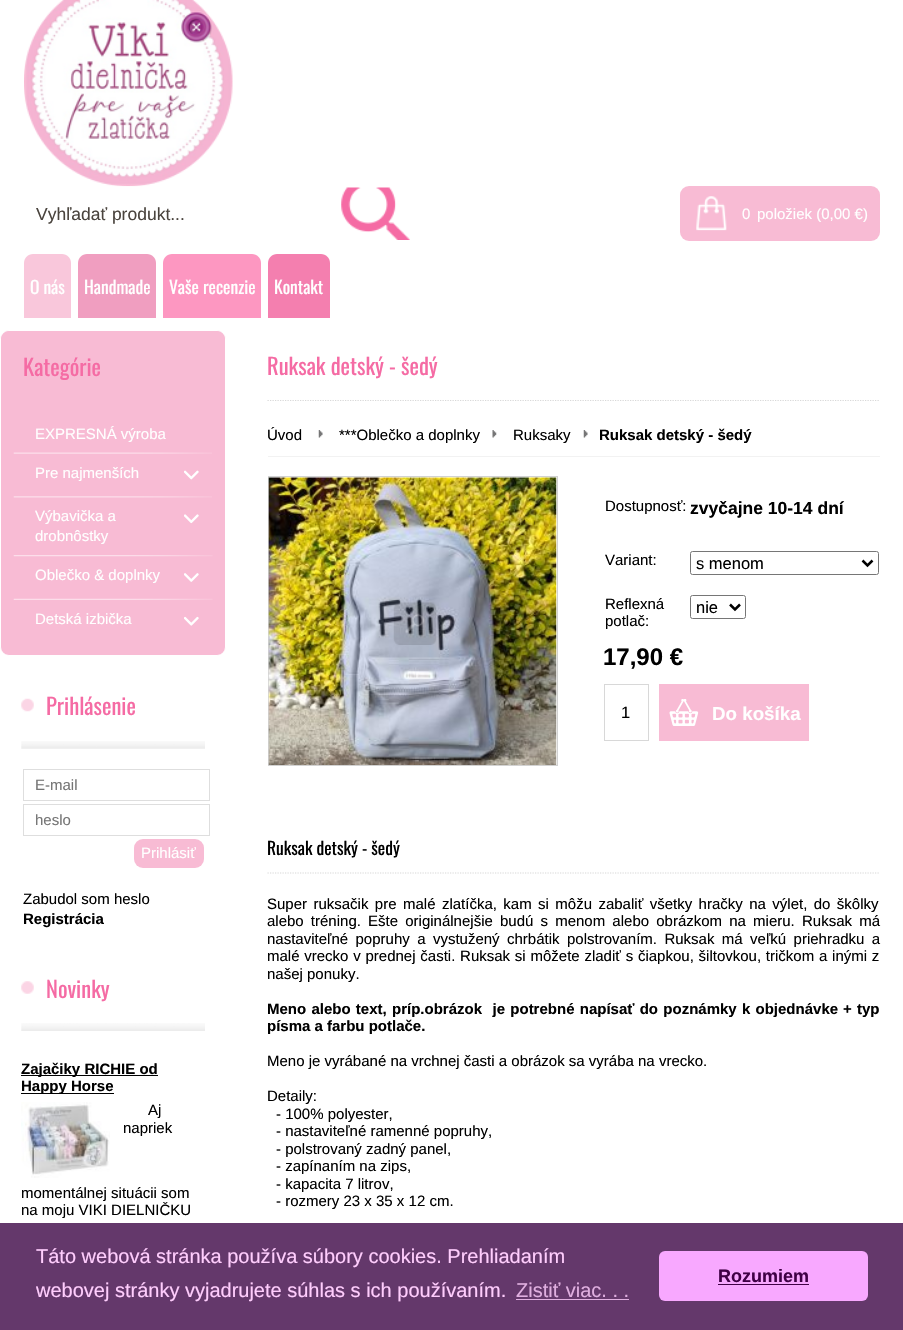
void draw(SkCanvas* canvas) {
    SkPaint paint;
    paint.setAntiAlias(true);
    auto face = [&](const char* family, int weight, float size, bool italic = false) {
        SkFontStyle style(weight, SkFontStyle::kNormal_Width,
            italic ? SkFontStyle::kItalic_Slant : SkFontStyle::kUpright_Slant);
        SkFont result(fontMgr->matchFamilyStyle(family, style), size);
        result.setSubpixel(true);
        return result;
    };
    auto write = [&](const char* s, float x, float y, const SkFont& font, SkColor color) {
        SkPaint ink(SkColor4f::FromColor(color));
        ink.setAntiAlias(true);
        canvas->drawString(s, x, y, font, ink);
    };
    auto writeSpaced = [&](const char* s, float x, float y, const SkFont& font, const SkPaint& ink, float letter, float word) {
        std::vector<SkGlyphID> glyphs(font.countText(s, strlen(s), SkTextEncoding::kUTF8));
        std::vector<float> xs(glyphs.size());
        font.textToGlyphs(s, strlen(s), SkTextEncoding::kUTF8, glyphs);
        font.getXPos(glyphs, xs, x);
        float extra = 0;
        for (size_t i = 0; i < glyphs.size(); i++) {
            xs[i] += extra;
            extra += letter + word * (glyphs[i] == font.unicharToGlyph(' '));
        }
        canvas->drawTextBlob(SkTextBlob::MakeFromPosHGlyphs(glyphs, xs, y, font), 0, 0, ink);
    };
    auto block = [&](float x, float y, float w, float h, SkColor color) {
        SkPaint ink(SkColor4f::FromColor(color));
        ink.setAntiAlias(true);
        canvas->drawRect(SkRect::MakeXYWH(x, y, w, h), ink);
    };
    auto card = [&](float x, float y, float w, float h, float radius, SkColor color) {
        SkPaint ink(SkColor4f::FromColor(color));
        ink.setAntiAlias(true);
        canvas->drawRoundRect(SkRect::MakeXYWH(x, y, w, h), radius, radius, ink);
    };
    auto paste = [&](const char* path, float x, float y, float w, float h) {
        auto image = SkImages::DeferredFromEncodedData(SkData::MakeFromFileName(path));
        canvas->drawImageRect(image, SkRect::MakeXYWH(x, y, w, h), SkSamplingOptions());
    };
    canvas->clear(SK_ColorWHITE);
    paste("pic1.png", 24, 0, 209, 187);
    auto kFont1 = face("Liberation Sans", 400, 17.5f);
    write("Vyhľadať produkt...", 36, 220, kFont1, SkColorSetRGB(74, 68, 62));
    paste("pic2.png", 341, 187, 69, 53);
    card(680, 186, 200, 55, 9, SkColorSetRGB(248, 187, 212));
    paste("pic3.png", 696, 196, 31, 35);
    auto kFont2 = face("Liberation Sans", 400, 15);
    write("0", 742, 219, kFont2, SK_ColorWHITE);
    write("položiek (0,00 €)", 757, 219, kFont2, SK_ColorWHITE);
    paint.setColor(SkColorSetRGB(249, 199, 219));
    canvas->drawPath(SkPathBuilder().moveTo(33, 254).lineTo(62, 254).cubicTo(67, 254, 71, 258, 71, 263).lineTo(71, 318).lineTo(24, 318).lineTo(24, 263).cubicTo(24, 258, 28, 254, 33, 254).close().detach(), paint);
    auto kFont3 = face("Oswald", 400, 17.5f);
    write("O nás", 30, 294, kFont3, SK_ColorWHITE);
    paint.setColor(SkColorSetRGB(240, 158, 192));
    canvas->drawPath(SkPathBuilder().moveTo(87, 254).lineTo(147, 254).cubicTo(152, 254, 156, 258, 156, 263).lineTo(156, 318).lineTo(78, 318).lineTo(78, 263).cubicTo(78, 258, 82, 254, 87, 254).close().detach(), paint);
    write("Handmade", 84, 294, kFont3, SK_ColorWHITE);
    paint.setColor(SkColorSetRGB(253, 151, 193));
    canvas->drawPath(SkPathBuilder().moveTo(172, 254).lineTo(252, 254).cubicTo(257, 254, 261, 258, 261, 263).lineTo(261, 318).lineTo(163, 318).lineTo(163, 263).cubicTo(163, 258, 167, 254, 172, 254).close().detach(), paint);
    write("Vaše recenzie", 169, 294, kFont3, SK_ColorWHITE);
    paint.setColor(SkColorSetRGB(244, 127, 175));
    canvas->drawPath(SkPathBuilder().moveTo(277, 254).lineTo(321, 254).cubicTo(326, 254, 330, 258, 330, 263).lineTo(330, 318).lineTo(268, 318).lineTo(268, 263).cubicTo(268, 258, 272, 254, 277, 254).close().detach(), paint);
    write("Kontakt", 274, 294, kFont3, SK_ColorWHITE);
    paint.setColor(SkColorSetRGB(248, 187, 212));
    canvas->drawRoundRect(SkRect::MakeXYWH(0.5f, 330.5f, 225, 325), 8.5f, 8.5f, paint);
    paint.setStyle(SkPaint::kStroke_Style);
    paint.setStrokeWidth(1);
    paint.setColor(SK_ColorWHITE);
    canvas->drawRoundRect(SkRect::MakeXYWH(0.5f, 330.5f, 225, 325), 8.5f, 8.5f, paint);
    paint.setStyle(SkPaint::kFill_Style);
    paint.setColor(SkColorSetRGB(248, 187, 212));
    canvas->drawPath(SkPathBuilder().moveTo(10, 331).lineTo(216, 331).cubicTo(221, 331, 225, 335, 225, 340).lineTo(225, 396).lineTo(1, 396).lineTo(1, 340).cubicTo(1, 335, 5, 331, 10, 331).close().detach(), paint);
    auto kFont4 = face("Oswald", 400, 22.5f);
    write("Kategórie", 23, 376, kFont4, SkColorSetRGB(245, 107, 164));
    paste("pic4.png", 13, 452, 199, 2);
    write("EXPRESNÁ výroba", 35, 439, kFont2, SK_ColorWHITE);
    paste("pic5.png", 13, 496, 199, 2);
    write("Pre najmenších", 35, 478, kFont2, SK_ColorWHITE);
    paste("pic6.png", 184, 470, 15, 10);
    paste("pic7.png", 13, 555, 200, 2);
    write("Výbavička a", 35, 521, kFont2, SK_ColorWHITE);
    write("drobnôstky", 35, 541, kFont2, SK_ColorWHITE);
    paste("pic8.png", 184, 514, 15, 10);
    paste("pic9.png", 13, 598, 200, 2);
    write("Oblečko & doplnky", 35, 580, kFont2, SK_ColorWHITE);
    paste("pic10.png", 184, 573, 15, 9);
    write("Detská izbička", 35, 624, kFont2, SK_ColorWHITE);
    paste("pic11.png", 184, 616, 15, 10);
    paste("pic12.png", 21, 698, 13, 14);
    paste("pic13.png", 21, 741, 184, 8);
    write("Prihlásenie", 46, 715, kFont4, SkColorSetRGB(245, 107, 164));
    paint.setStyle(SkPaint::kStroke_Style);
    paint.setColor(SkColorSetRGB(222, 222, 222));
    canvas->drawRect(SkRect::MakeXYWH(23.5f, 769.5f, 186, 31), paint);
    write("E-mail", 35, 790, kFont2, SkColorSetRGB(117, 117, 117));
    canvas->drawRect(SkRect::MakeXYWH(23.5f, 804.5f, 186, 31), paint);
    write("heslo", 35, 825, kFont2, SkColorSetRGB(117, 117, 117));
    card(134, 839, 70, 29, 9, SkColorSetRGB(248, 187, 212));
    write("Prihlásiť", 141, 858, kFont2, SK_ColorWHITE);
    write("Zabudol som heslo", 23, 904, kFont2, SK_ColorBLACK);
    auto kFont5 = face("Liberation Sans", 700, 15);
    write("Registrácia", 23, 924, kFont5, SK_ColorBLACK);
    paste("pic14.png", 21, 981, 13, 13);
    paste("pic15.png", 21, 1023, 184, 8);
    write("Novinky", 46, 998, kFont4, SkColorSetRGB(245, 107, 164));
    block(21, 1075, 137, 1, SK_ColorBLACK);
    write("Zajačiky RICHIE od", 21, 1074, kFont5, SK_ColorBLACK);
    block(21, 1093, 93, 1, SK_ColorBLACK);
    write("Happy Horse", 21, 1091, kFont5, SK_ColorBLACK);
    paste("pic16.png", 21, 1102, 89, 76);
    write("Aj", 148, 1115, kFont2, SK_ColorBLACK);
    write("napriek", 123, 1133, kFont2, SK_ColorBLACK);
    write("momentálnej situácii som", 21, 1198, kFont2, SK_ColorBLACK);
    write("na moju VIKI DIELNIČKU", 21, 1215, kFont2, SK_ColorBLACK);
    paint.setStrokeWidth(1.2f);
    paint.setColor(SkColorSetRGB(216, 216, 216));
    paint.setPathEffect(SkDashPathEffect::Make({{1.25f, 1.25f}}, 0));
    canvas->drawPath(SkPathBuilder().moveTo(267.5f, 400.5f).lineTo(880, 400.5f).detach(), paint);
    paint.setPathEffect(nullptr);
    write("Ruksak detský - šedý", 267, 375, kFont4, SkColorSetRGB(245, 107, 164));
    block(268, 456, 612, 1, SkColorSetRGB(242, 242, 242));
    write("Úvod", 267, 440, kFont2, SK_ColorBLACK);
    paste("pic17.png", 318, 430, 5, 8);
    write("***Oblečko a doplnky", 339, 440, kFont2, SK_ColorBLACK);
    paste("pic18.png", 492, 430, 5, 8);
    write("Ruksaky", 513, 440, kFont2, SK_ColorBLACK);
    paste("pic17.png", 583, 430, 5, 8);
    write("Ruksak detský - šedý", 599, 440, kFont5, SK_ColorBLACK);
    paint.setStrokeWidth(1);
    paint.setColor(SkColorSetRGB(210, 210, 210));
    canvas->drawRect(SkRect::MakeXYWH(268.5f, 476.5f, 289, 289), paint);
    paste("pic19.png", 268, 477, 289, 288);
    paste("pic20.png", 393, 602, 44, 43);
    write("Dostupnosť:", 605, 511, kFont2, SK_ColorBLACK);
    auto kFont6 = face("Liberation Sans", 700, 17.5f);
    write("zvyčajne 10-14 dní", 690, 514, kFont6, SK_ColorBLACK);
    write("Variant:", 605, 565, kFont2, SK_ColorBLACK);
    paint.setColor(SkColorSetRGB(118, 118, 118));
    canvas->drawRoundRect(SkRect::MakeXYWH(690.5f, 551.5f, 188, 23), 2, 2, paint);
    paint.setStrokeWidth(2.5f);
    paint.setColor(SK_ColorBLACK);
    canvas->drawPath(SkPathBuilder().moveTo(862.5f, 560.5f).lineTo(867.5f, 565.5f).lineTo(872.5f, 560.5f).detach(), paint);
    auto kFont7 = face("Liberation Sans", 400, 16.5f);
    write("s menom", 696, 569, kFont7, SK_ColorBLACK);
    write("Reflexná", 605, 609, kFont2, SK_ColorBLACK);
    write("potlač:", 605, 626, kFont2, SK_ColorBLACK);
    paint.setStrokeWidth(1);
    paint.setColor(SkColorSetRGB(118, 118, 118));
    canvas->drawRoundRect(SkRect::MakeXYWH(690.5f, 595.5f, 55, 23), 2, 2, paint);
    paint.setStrokeWidth(2.5f);
    paint.setColor(SK_ColorBLACK);
    canvas->drawPath(SkPathBuilder().moveTo(730, 604.5f).lineTo(735, 609.5f).lineTo(740, 604.5f).detach(), paint);
    write("nie", 696, 613, kFont7, SK_ColorBLACK);
    auto kFont8 = face("Liberation Sans", 700, 24);
    write("17,90 €", 603, 665, kFont8, SK_ColorBLACK);
    paint.setStrokeWidth(1);
    paint.setColor(SkColorSetRGB(216, 216, 216));
    canvas->drawRect(SkRect::MakeXYWH(604.5f, 684.5f, 44, 56), paint);
    write("1", 621, 718, kFont7, SK_ColorBLACK);
    block(659, 684, 150, 57, SkColorSetRGB(248, 187, 212));
    paste("pic21.png", 669, 699, 30, 27);
    auto kFont9 = face("Liberation Sans", 700, 18.75f);
    write("Do košíka", 712, 720, kFont9, SK_ColorWHITE);
    paint.setStrokeWidth(1.2f);
    paint.setPathEffect(SkDashPathEffect::Make({{1.25f, 1.25f}}, 0));
    canvas->drawPath(SkPathBuilder().moveTo(267.5f, 873).lineTo(880, 873).detach(), paint);
    paint.setPathEffect(nullptr);
    write("Ruksak detský - šedý", 267, 855, kFont3, SK_ColorBLACK);
    paint.setStyle(SkPaint::kFill_Style);
    paint.setColor(SK_ColorBLACK);
    writeSpaced("Super ruksačik pre malé zlatíčka, kam si môžu zabaliť všetky hračky na výlet, do škôlky", 267, 909, kFont2, paint, 0, 2.25f);
    writeSpaced("alebo tréning. Ešte originálnejšie budú s menom alebo obrázkom na mieru. Ruksak má", 267, 926, kFont2, paint, 0, 3);
    writeSpaced("nastaviteľné popruhy a vystužený chrbátik polstrovaním. Ruksak má veľkú priehradku a", 267, 944, kFont2, paint, 0, 3.25f);
    writeSpaced("malé vrecko v prednej časti. Ruksak si môžete zladiť s čiapkou, šiltovkou, tričkom a inými z", 267, 961, kFont2, paint, 0, 0.6f);
    write("našej ponuky.", 267, 979, kFont2, SK_ColorBLACK);
    writeSpaced("Meno alebo text, príp.obrázok  je potrebné napísať do poznámky k objednávke", 267, 1014, kFont5, paint, 0, 1.1f);
    writeSpaced("+ typ", 843, 1014, kFont5, paint, 0, 1.1f);
    write("písma a farbu potlače.", 267, 1031, kFont5, SK_ColorBLACK);
    write("Meno je vyrábané na vrchnej časti a obrázok sa vyrába na vrecko.", 267, 1066, kFont2, SK_ColorBLACK);
    write("Detaily:", 267, 1101, kFont2, SK_ColorBLACK);
    write("- 100% polyester,", 276, 1119, kFont2, SK_ColorBLACK);
    write("- nastaviteľné ramenné popruhy,", 276, 1136, kFont2, SK_ColorBLACK);
    write("- polstrovaný zadný panel,", 276, 1154, kFont2, SK_ColorBLACK);
    write("- zapínaním na zips,", 276, 1171, kFont2, SK_ColorBLACK);
    write("- kapacita 7 litrov,", 276, 1189, kFont2, SK_ColorBLACK);
    write("- rozmery 23 x 35 x 12 cm.", 276, 1206, kFont2, SK_ColorBLACK);
    block(0, 1223, 903, 107, SkColorSetRGB(100, 56, 107));
    auto kFont10 = face("Liberation Sans", 400, 20);
    write("Táto webová stránka používa súbory cookies. Prehliadaním", 36, 1263, kFont10, SkColorSetRGB(255, 205, 253));
    write("webovej stránky vyjadrujete súhlas s ich používaním.", 36, 1297, kFont10, SkColorSetRGB(255, 205, 253));
    write("Zistiť viac. . .", 516, 1297, kFont10, SkColorSetRGB(224, 175, 224));
    block(516, 1299, 113, 1, SkColorSetRGB(224, 175, 224));
    card(659, 1251, 209, 50, 6, SkColorSetRGB(248, 168, 255));
    auto kFont11 = face("Liberation Sans", 700, 18);
    write("Rozumiem", 718, 1282, kFont11, SkColorSetRGB(63, 0, 69));
    block(718, 1284, 91, 1, SkColorSetRGB(63, 0, 69));
}
